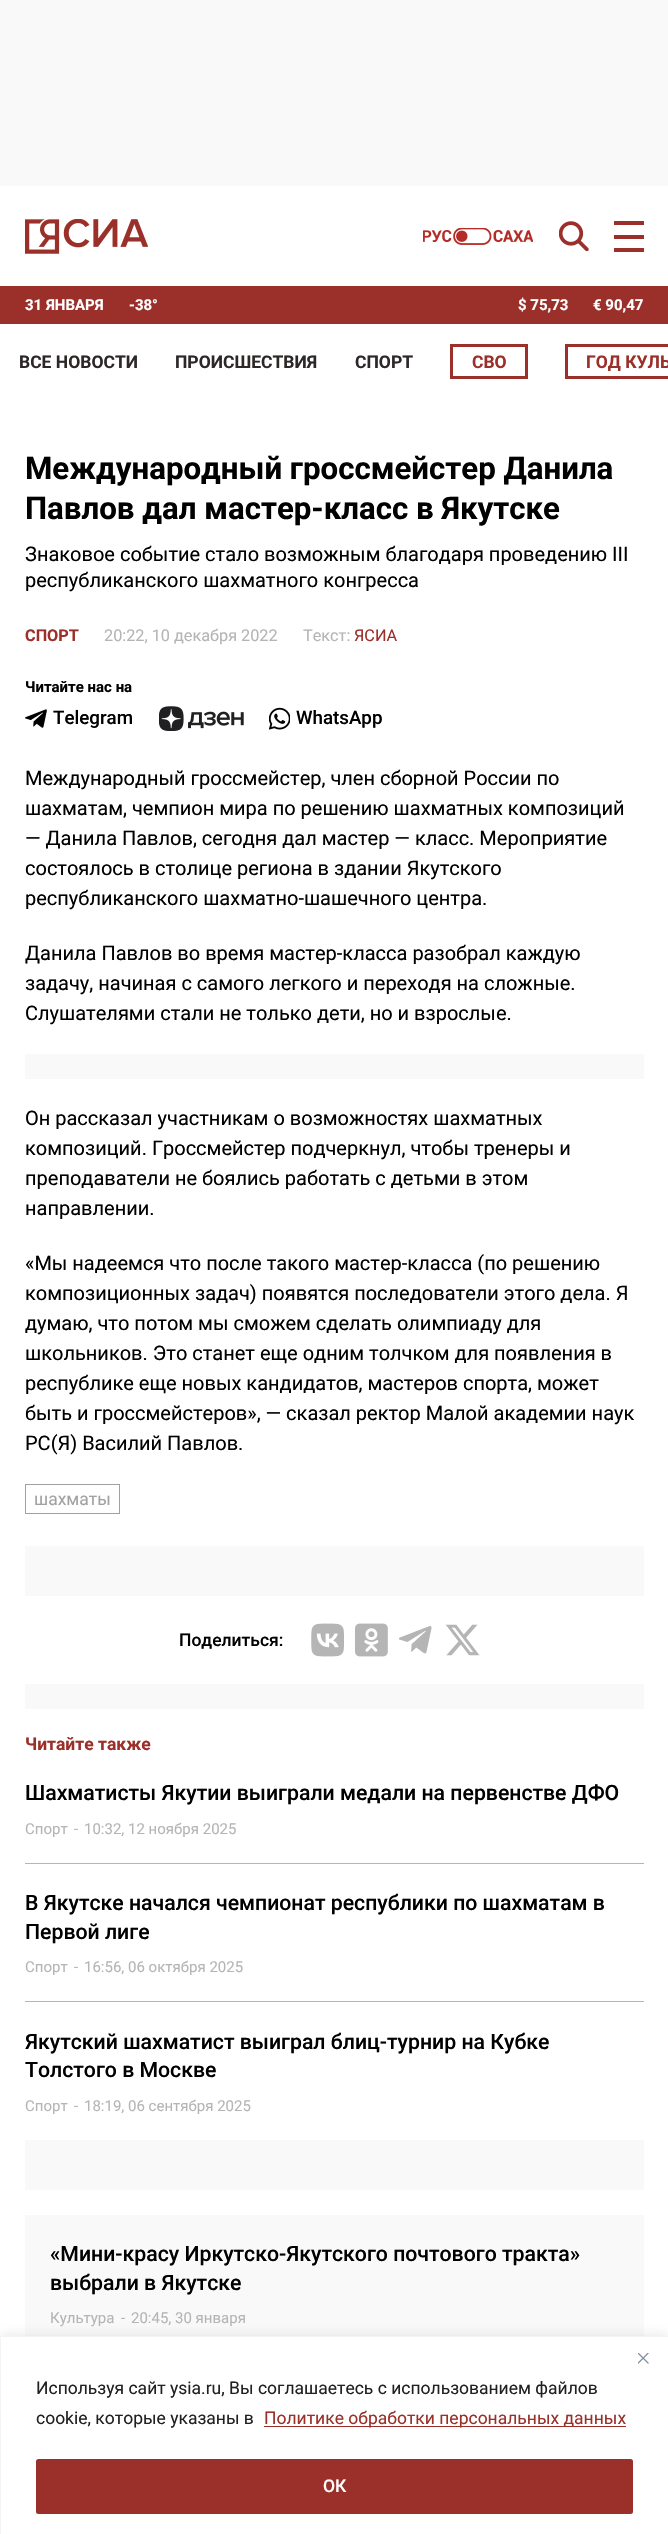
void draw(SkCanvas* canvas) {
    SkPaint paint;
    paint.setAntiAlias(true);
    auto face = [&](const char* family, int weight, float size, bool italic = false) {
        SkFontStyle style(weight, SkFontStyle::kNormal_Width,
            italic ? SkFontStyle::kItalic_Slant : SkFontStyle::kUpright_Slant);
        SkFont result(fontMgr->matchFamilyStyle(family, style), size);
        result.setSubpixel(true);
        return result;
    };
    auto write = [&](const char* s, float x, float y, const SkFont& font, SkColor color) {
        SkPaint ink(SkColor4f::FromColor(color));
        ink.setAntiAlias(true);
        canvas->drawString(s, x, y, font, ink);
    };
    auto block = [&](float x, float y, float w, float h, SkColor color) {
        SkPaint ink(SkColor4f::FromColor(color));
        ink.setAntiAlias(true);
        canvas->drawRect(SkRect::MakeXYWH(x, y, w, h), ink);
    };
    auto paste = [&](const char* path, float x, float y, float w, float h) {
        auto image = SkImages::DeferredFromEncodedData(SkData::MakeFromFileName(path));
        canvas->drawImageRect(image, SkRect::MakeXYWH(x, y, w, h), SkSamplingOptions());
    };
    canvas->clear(SK_ColorWHITE);
    block(0, 0, 668, 186, SkColorSetRGB(249, 249, 249));
    paste("pic1.png", 25, 219, 123, 35);
    paste("pic2.png", 423, 228, 110, 17);
    paste("pic3.png", 559, 221, 30, 30);
    block(614, 221, 30, 4, SkColorSetRGB(155, 48, 42));
    block(614, 235, 30, 4, SkColorSetRGB(155, 48, 42));
    block(614, 248, 30, 4, SkColorSetRGB(155, 48, 42));
    block(0, 286, 668, 38, SkColorSetRGB(155, 48, 42));
    auto kFont1 = face("Roboto", 700, 15);
    write("31 ЯНВАРЯ", 25, 310, kFont1, SK_ColorWHITE);
    write("-38°", 129, 310, kFont1, SK_ColorWHITE);
    write("$ 75,73", 518, 310, kFont1, SK_ColorWHITE);
    write("€ 90,47", 593, 310, kFont1, SK_ColorWHITE);
    auto kFont2 = face("Roboto", 700, 17.5f);
    write("ВСЕ НОВОСТИ", 19, 368, kFont2, SkColorSetRGB(45, 39, 40));
    write("ПРОИСШЕСТВИЯ", 175, 368, kFont2, SkColorSetRGB(45, 39, 40));
    write("СПОРТ", 355, 368, kFont2, SkColorSetRGB(45, 39, 40));
    paint.setStyle(SkPaint::kStroke_Style);
    paint.setStrokeWidth(3);
    paint.setColor(SkColorSetRGB(155, 48, 42));
    canvas->drawRect(SkRect::MakeXYWH(451.5f, 345.5f, 75, 32), paint);
    write("СВО", 472, 368, kFont2, SkColorSetRGB(155, 48, 42));
    canvas->drawRect(SkRect::MakeXYWH(566.5f, 345.5f, 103, 32), paint);
    write("ГОД КУЛЬ", 586, 368, kFont2, SkColorSetRGB(155, 48, 42));
    auto kFont3 = face("Roboto", 700, 31.25f);
    write("Международный гроссмейстер Данила", 25, 479, kFont3, SK_ColorBLACK);
    write("Павлов дал мастер-класс в Якутске", 25, 519, kFont3, SK_ColorBLACK);
    auto kFont4 = face("Roboto", 400, 20);
    write("Знаковое событие стало возможным благодаря проведению III", 25, 561, kFont4, SK_ColorBLACK);
    write("республиканского шахматного конгресса", 25, 587, kFont4, SK_ColorBLACK);
    auto kFont5 = face("Roboto", 700, 16.25f);
    write("СПОРТ", 25, 641, kFont5, SkColorSetRGB(155, 48, 42));
    auto kFont6 = face("Roboto", 400, 16.25f);
    write("20:22, 10 декабря 2022", 104, 641, kFont6, SkColorSetRGB(181, 181, 181));
    write("Текст:", 303, 641, kFont6, SkColorSetRGB(181, 181, 181));
    write("ЯСИА", 354, 641, kFont6, SkColorSetRGB(155, 48, 42));
    write("Читайте нас на", 25, 692, kFont1, SK_ColorBLACK);
    paste("pic4.png", 25, 709, 22, 19);
    auto kFont7 = face("Roboto", 500, 18.75f);
    write("Telegram", 53, 724, kFont7, SK_ColorBLACK);
    paste("pic5.png", 159, 706, 85, 25);
    paste("pic6.png", 269, 707, 21, 23);
    write("WhatsApp", 296, 724, kFont7, SK_ColorBLACK);
    write("Международный гроссмейстер, член сборной России по", 25, 785, kFont4, SK_ColorBLACK);
    write("шахматам, чемпион мира по решению шахматных композиций", 25, 815, kFont4, SK_ColorBLACK);
    write("— Данила Павлов, сегодня дал мастер — класс. Мероприятие", 25, 845, kFont4, SK_ColorBLACK);
    write("состоялось в столице региона в здании Якутского", 25, 875, kFont4, SK_ColorBLACK);
    write("республиканского шахматно-шашечного центра.", 25, 905, kFont4, SK_ColorBLACK);
    write("Данила Павлов во время мастер-класса разобрал каждую", 25, 960, kFont4, SK_ColorBLACK);
    write("задачу, начиная с самого легкого и переходя на сложные.", 25, 990, kFont4, SK_ColorBLACK);
    write("Слушателями стали не только дети, но и взрослые.", 25, 1020, kFont4, SK_ColorBLACK);
    block(25, 1054, 619, 25, SkColorSetRGB(249, 249, 249));
    write("Он рассказал участникам о возможностях шахматных", 25, 1125, kFont4, SK_ColorBLACK);
    write("композиций. Гроссмейстер подчеркнул, чтобы тренеры и", 25, 1155, kFont4, SK_ColorBLACK);
    write("преподаватели не боялись работать с детьми в этом", 25, 1185, kFont4, SK_ColorBLACK);
    write("направлении.", 25, 1215, kFont4, SK_ColorBLACK);
    write("«Мы надеемся что после такого мастер-класса (по решению", 25, 1270, kFont4, SK_ColorBLACK);
    write("композиционных задач) появятся последователи этого дела. Я", 25, 1300, kFont4, SK_ColorBLACK);
    write("думаю, что потом мы сможем сделать олимпиаду для", 25, 1330, kFont4, SK_ColorBLACK);
    write("школьников. Это станет еще одним толчком для появления в", 25, 1360, kFont4, SK_ColorBLACK);
    write("республике еще новых кандидатов, мастеров спорта, может", 25, 1390, kFont4, SK_ColorBLACK);
    write("быть и гроссмейстеров», — сказал ректор Малой академии наук", 25, 1420, kFont4, SK_ColorBLACK);
    write("РС(Я) Василий Павлов.", 25, 1450, kFont4, SK_ColorBLACK);
    paint.setStrokeWidth(1);
    paint.setColor(SkColorSetRGB(161, 161, 161));
    canvas->drawRect(SkRect::MakeXYWH(25.5f, 1484.5f, 94, 29), paint);
    auto kFont8 = face("Roboto", 400, 17.5f);
    write("шахматы", 34, 1505, kFont8, SkColorSetRGB(161, 161, 161));
    block(25, 1546, 619, 50, SkColorSetRGB(249, 249, 249));
    auto kFont9 = face("Roboto", 500, 17.5f);
    write("Поделиться:", 179, 1646, kFont9, SK_ColorBLACK);
    paste("pic7.png", 311, 1623, 33, 34);
    paste("pic8.png", 355, 1623, 33, 34);
    paste("pic9.png", 399, 1626, 33, 28);
    paste("pic10.png", 445, 1624, 35, 32);
    block(25, 1684, 619, 25, SkColorSetRGB(249, 249, 249));
    write("Читайте также", 25, 1750, kFont2, SkColorSetRGB(155, 48, 42));
    block(25, 1863, 619, 1, SkColorSetRGB(181, 181, 181));
    auto kFont10 = face("Roboto", 500, 21.25f);
    write("Шахматисты Якутии выиграли медали на первенстве ДФО", 25, 1800, kFont10, SK_ColorBLACK);
    auto kFont11 = face("Roboto", 400, 15);
    write("Спорт", 25, 1834, kFont11, SkColorSetRGB(181, 181, 181));
    write("-", 74, 1834, kFont11, SkColorSetRGB(181, 181, 181));
    write("10:32, 12 ноября 2025", 84, 1834, kFont11, SkColorSetRGB(181, 181, 181));
    block(25, 2001, 619, 1, SkColorSetRGB(181, 181, 181));
    write("В Якутске начался чемпионат республики по шахматам в", 25, 1910, kFont10, SK_ColorBLACK);
    write("Первой лиге", 25, 1939, kFont10, SK_ColorBLACK);
    write("Спорт", 25, 1972, kFont11, SkColorSetRGB(181, 181, 181));
    write("-", 74, 1972, kFont11, SkColorSetRGB(181, 181, 181));
    write("16:56, 06 октября 2025", 84, 1972, kFont11, SkColorSetRGB(181, 181, 181));
    write("Якутский шахматист выиграл блиц-турнир на Кубке", 25, 2049, kFont10, SK_ColorBLACK);
    write("Толстого в Москве", 25, 2077, kFont10, SK_ColorBLACK);
    write("Спорт", 25, 2111, kFont11, SkColorSetRGB(181, 181, 181));
    write("-", 74, 2111, kFont11, SkColorSetRGB(181, 181, 181));
    write("18:19, 06 сентября 2025", 84, 2111, kFont11, SkColorSetRGB(181, 181, 181));
    block(25, 2140, 619, 50, SkColorSetRGB(249, 249, 249));
    block(25, 2215, 619, 121, SkColorSetRGB(249, 249, 249));
    write("«Мини-красу Иркутско-Якутского почтового тракта»", 50, 2261, kFont10, SK_ColorBLACK);
    write("выбрали в Якутске", 50, 2290, kFont10, SK_ColorBLACK);
    write("Культура", 50, 2323, kFont11, SkColorSetRGB(181, 181, 181));
    write("-", 121, 2323, kFont11, SkColorSetRGB(181, 181, 181));
    write("20:45, 30 января", 131, 2323, kFont11, SkColorSetRGB(181, 181, 181));
    paint.setStyle(SkPaint::kFill_Style);
    paint.setColor(SkColorSetARGB(77, 172, 171, 171));
    paint.setMaskFilter(SkMaskFilter::MakeBlur(kNormal_SkBlurStyle, 6));
    canvas->drawRect(SkRect::MakeXYWH(0, 2335, 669, 199), paint);
    paint.setMaskFilter(nullptr);
    paint.setColor(SK_ColorWHITE);
    canvas->drawRect(SkRect::MakeXYWH(0.5f, 2336.5f, 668, 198), paint);
    paint.setStyle(SkPaint::kStroke_Style);
    paint.setColor(SkColorSetRGB(244, 244, 244));
    canvas->drawRect(SkRect::MakeXYWH(0.5f, 2336.5f, 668, 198), paint);
    paste("pic11.png", 638, 2353, 11, 11);
    write("Используя сайт ysia.ru, Вы соглашаетесь с использованием файлов", 36, 2394, kFont8, SkColorSetRGB(33, 33, 33));
    write("cookie, которые указаны в", 36, 2424, kFont8, SkColorSetRGB(33, 33, 33));
    block(264, 2426, 362, 1, SkColorSetRGB(155, 48, 42));
    write("Политике обработки персональных данных", 264, 2424, kFont8, SkColorSetRGB(155, 48, 42));
    paint.setStyle(SkPaint::kFill_Style);
    paint.setColor(SkColorSetRGB(155, 48, 42));
    canvas->drawRoundRect(SkRect::MakeXYWH(37.5f, 2460.5f, 594, 52), 1, 1, paint);
    paint.setStyle(SkPaint::kStroke_Style);
    paint.setStrokeWidth(3);
    canvas->drawRoundRect(SkRect::MakeXYWH(37.5f, 2460.5f, 594, 52), 1, 1, paint);
    write("ОК", 323, 2492, kFont9, SK_ColorWHITE);
}
